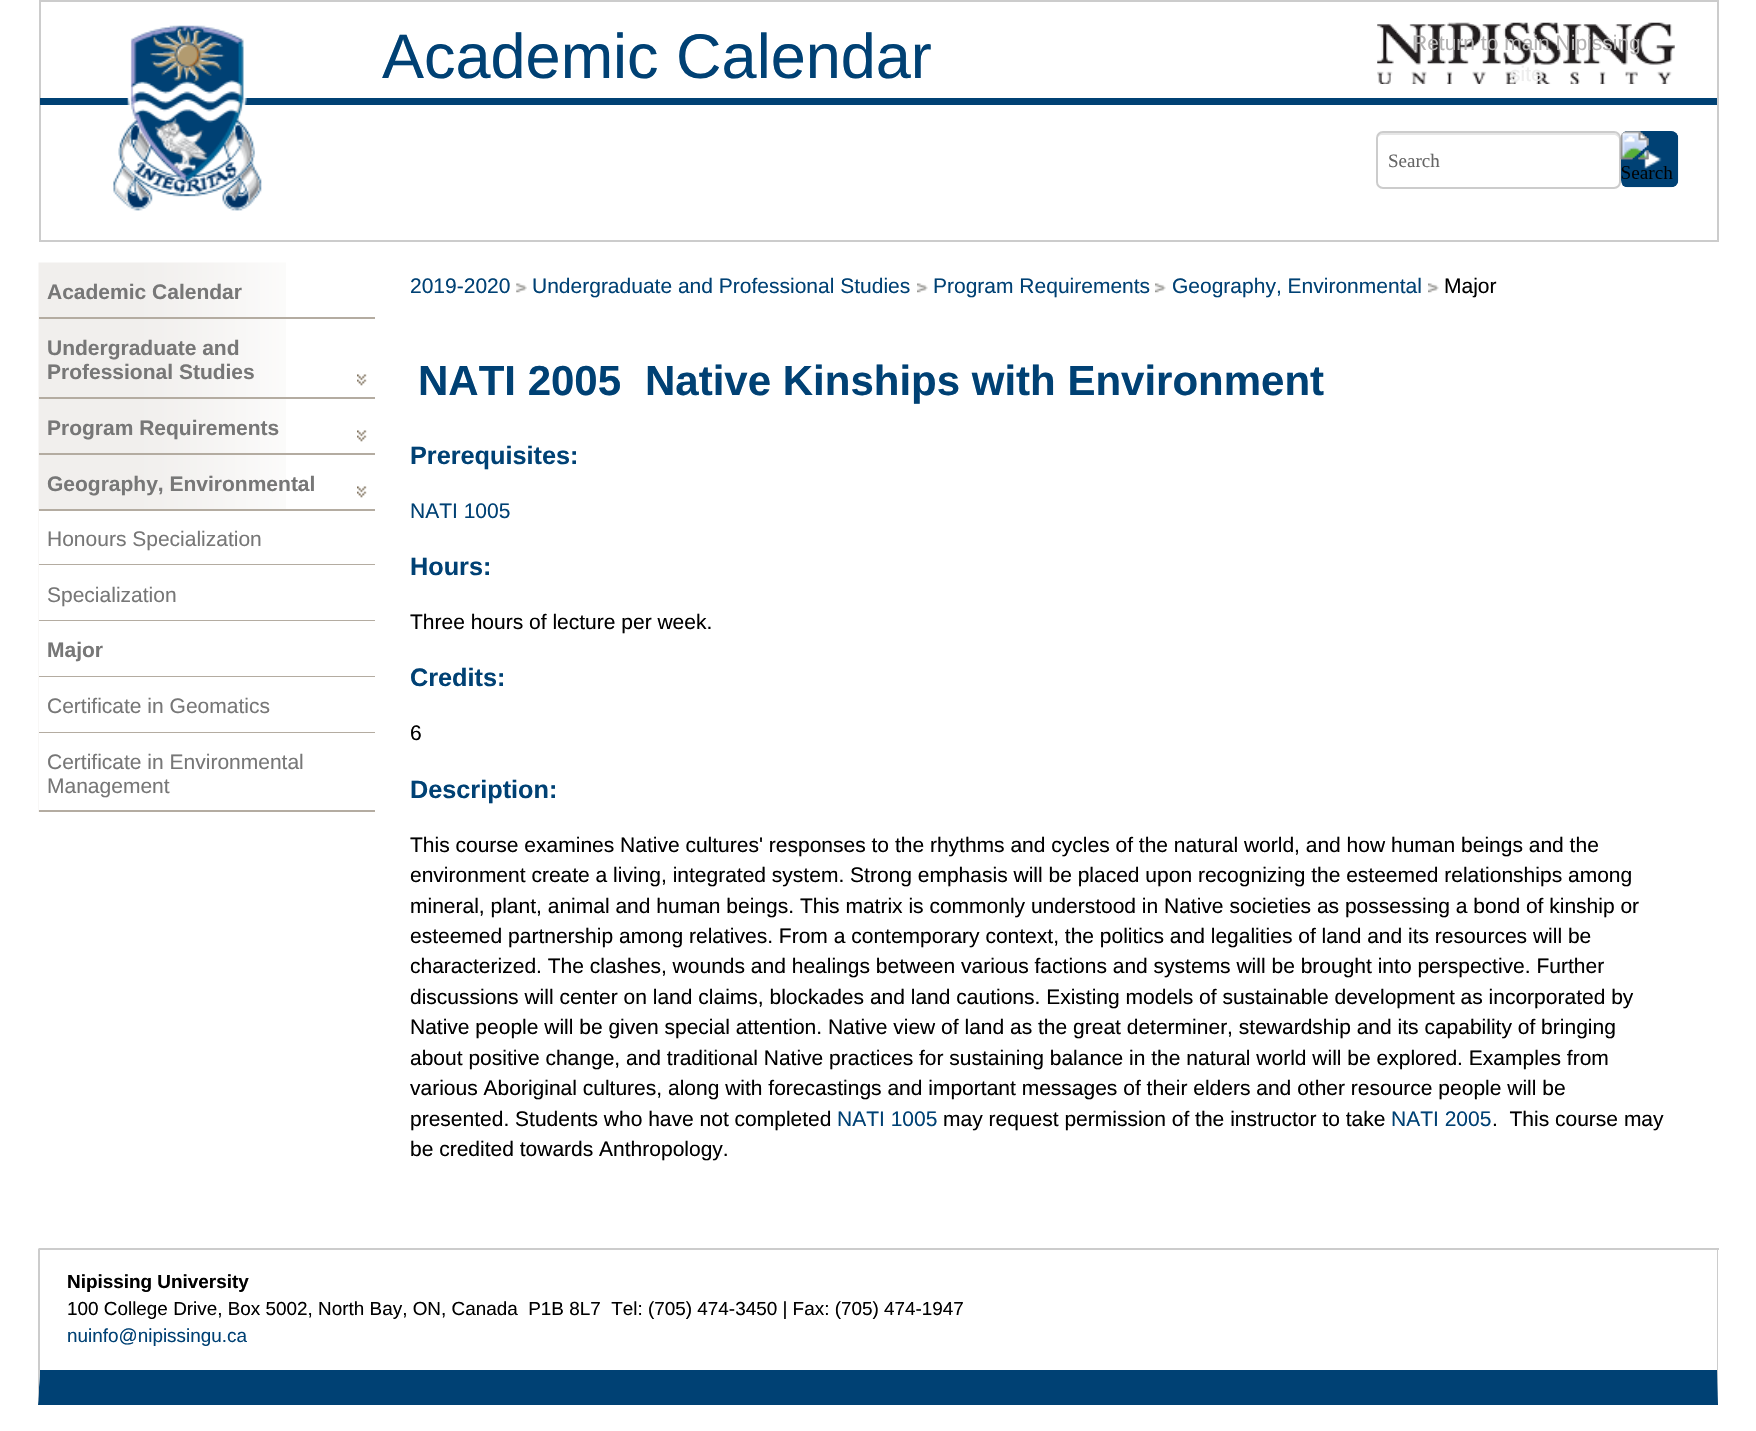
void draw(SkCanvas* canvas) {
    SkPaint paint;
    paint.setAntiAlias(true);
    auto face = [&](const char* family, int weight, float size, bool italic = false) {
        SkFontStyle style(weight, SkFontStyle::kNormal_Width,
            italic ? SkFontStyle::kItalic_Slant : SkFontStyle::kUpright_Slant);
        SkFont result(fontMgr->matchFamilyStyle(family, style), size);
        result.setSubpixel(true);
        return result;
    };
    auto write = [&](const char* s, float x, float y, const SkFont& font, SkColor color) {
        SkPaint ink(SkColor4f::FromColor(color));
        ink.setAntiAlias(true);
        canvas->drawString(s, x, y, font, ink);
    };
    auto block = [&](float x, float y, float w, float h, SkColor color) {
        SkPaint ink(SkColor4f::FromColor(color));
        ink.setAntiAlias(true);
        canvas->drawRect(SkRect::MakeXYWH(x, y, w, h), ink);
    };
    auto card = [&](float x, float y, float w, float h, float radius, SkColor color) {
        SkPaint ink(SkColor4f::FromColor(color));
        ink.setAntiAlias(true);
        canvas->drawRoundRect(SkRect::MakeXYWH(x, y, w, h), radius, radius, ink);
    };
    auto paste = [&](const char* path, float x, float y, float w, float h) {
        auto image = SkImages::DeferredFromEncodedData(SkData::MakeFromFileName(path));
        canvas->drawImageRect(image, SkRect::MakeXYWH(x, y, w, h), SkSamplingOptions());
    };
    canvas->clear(SK_ColorWHITE);
    paint.setStyle(SkPaint::kStroke_Style);
    paint.setStrokeWidth(2);
    paint.setColor(SkColorSetRGB(204, 204, 204));
    canvas->drawRect(SkRect::MakeXYWH(40, 1, 1678, 240), paint);
    block(40, 98, 1677, 7, SkColorSetRGB(0, 65, 116));
    paste("pic1.png", 113, 25, 149, 186);
    auto kFont1 = face("Liberation Sans", 400, 63);
    write("Academic Calendar", 382, 78, kFont1, SkColorSetRGB(0, 65, 116));
    paste("pic2.png", 1377, 22, 298, 62);
    auto kFont2 = face("Liberation Sans", 400, 21);
    write("Return to main Nipissing", 1412, 50, kFont2, SkColorSetRGB(179, 178, 178));
    write("site", 1510, 81, kFont2, SkColorSetRGB(237, 237, 237));
    paint.setStyle(SkPaint::kFill_Style);
    paint.setColor(SkColorSetRGB(230, 230, 230));
    canvas->drawPath(SkPathBuilder().moveTo(1382, 135).lineTo(1614, 135).cubicTo(1616, 135, 1619, 137, 1619, 140).cubicTo(1619, 137, 1619, 134, 1615, 133).lineTo(1381, 133).cubicTo(1377, 134, 1377, 137, 1377, 140).cubicTo(1377, 137, 1380, 135, 1382, 135).close().detach(), paint);
    paint.setStyle(SkPaint::kStroke_Style);
    paint.setColor(SkColorSetRGB(204, 204, 204));
    canvas->drawRoundRect(SkRect::MakeXYWH(1377, 132, 243, 56), 6, 6, paint);
    auto kFont3 = face("Liberation Serif", 400, 19);
    write("Search", 1388, 167, kFont3, SkColorSetRGB(102, 102, 102));
    card(1621, 131, 57, 56, 7, SkColorSetRGB(0, 65, 116));
    paste("pic3.png", 1620, 131, 59, 57);
    paste("pic4.png", 1620, 131, 53, 48);
    paste("pic5.png", 38, 262, 248, 550);
    block(39, 317, 336, 2, SkColorSetRGB(180, 172, 161));
    auto kFont4 = face("Liberation Sans", 700, 21);
    write("Academic Calendar", 47, 299, kFont4, SkColorSetRGB(119, 119, 119));
    paste("pic6.png", 357, 374, 10, 12);
    block(39, 397, 336, 2, SkColorSetRGB(180, 172, 161));
    write("Undergraduate and", 47, 355, kFont4, SkColorSetRGB(119, 119, 119));
    write("Professional Studies", 47, 379, kFont4, SkColorSetRGB(119, 119, 119));
    paste("pic6.png", 357, 430, 10, 12);
    block(39, 453, 336, 2, SkColorSetRGB(180, 172, 161));
    write("Program Requirements", 47, 435, kFont4, SkColorSetRGB(119, 119, 119));
    paste("pic6.png", 357, 486, 10, 12);
    block(39, 509, 336, 2, SkColorSetRGB(180, 172, 161));
    write("Geography, Environmental", 47, 491, kFont4, SkColorSetRGB(119, 119, 119));
    block(39, 511, 247, 53, SK_ColorWHITE);
    block(39, 564, 336, 1, SkColorSetRGB(180, 172, 161));
    write("Honours Specialization", 47, 546, kFont2, SkColorSetRGB(119, 119, 119));
    block(39, 565, 247, 55, SK_ColorWHITE);
    block(39, 620, 336, 1, SkColorSetRGB(180, 172, 161));
    write("Specialization", 47, 602, kFont2, SkColorSetRGB(119, 119, 119));
    block(39, 621, 247, 55, SK_ColorWHITE);
    block(39, 676, 336, 1, SkColorSetRGB(180, 172, 161));
    write("Major", 47, 657, kFont4, SkColorSetRGB(119, 119, 119));
    block(39, 677, 247, 55, SK_ColorWHITE);
    block(39, 732, 336, 1, SkColorSetRGB(180, 172, 161));
    write("Certificate in Geomatics", 47, 713, kFont2, SkColorSetRGB(119, 119, 119));
    block(39, 733, 247, 77, SK_ColorWHITE);
    block(39, 810, 336, 2, SkColorSetRGB(180, 172, 161));
    write("Certificate in Environmental", 47, 769, kFont2, SkColorSetRGB(119, 119, 119));
    write("Management", 47, 793, kFont2, SkColorSetRGB(119, 119, 119));
    write("2019-2020", 410, 293, kFont2, SkColorSetRGB(0, 65, 116));
    paste("pic7.png", 516, 283, 11, 10);
    write("Undergraduate and Professional Studies", 532, 293, kFont2, SkColorSetRGB(0, 65, 116));
    paste("pic8.png", 917, 283, 11, 10);
    write("Program Requirements", 933, 293, kFont2, SkColorSetRGB(0, 65, 116));
    paste("pic8.png", 1155, 283, 11, 10);
    write("Geography, Environmental", 1172, 293, kFont2, SkColorSetRGB(0, 65, 116));
    paste("pic8.png", 1428, 283, 11, 10);
    write("Major", 1444, 293, kFont2, SK_ColorBLACK);
    auto kFont5 = face("Liberation Sans", 700, 42);
    write("NATI 2005", 418, 395, kFont5, SkColorSetRGB(0, 65, 116));
    write("Native Kinships with Environment", 645, 395, kFont5, SkColorSetRGB(0, 65, 116));
    auto kFont6 = face("Liberation Sans", 700, 25.25f);
    write("Prerequisites:", 410, 464, kFont6, SkColorSetRGB(0, 65, 116));
    write("NATI 1005", 410, 518, kFont2, SkColorSetRGB(0, 65, 116));
    write("Hours:", 410, 575, kFont6, SkColorSetRGB(0, 65, 116));
    write("Three hours of lecture per week.", 410, 629, kFont2, SK_ColorBLACK);
    write("Credits:", 410, 686, kFont6, SkColorSetRGB(0, 65, 116));
    write("6", 410, 740, kFont2, SK_ColorBLACK);
    write("Description:", 410, 798, kFont6, SkColorSetRGB(0, 65, 116));
    write("This course examines Native cultures' responses to the rhythms and cycles of the natural world, and how human beings and the", 410, 852, kFont2, SK_ColorBLACK);
    write("environment create a living, integrated system. Strong emphasis will be placed upon recognizing the esteemed relationships among", 410, 882, kFont2, SK_ColorBLACK);
    write("mineral, plant, animal and human beings. This matrix is commonly understood in Native societies as possessing a bond of kinship or", 410, 913, kFont2, SK_ColorBLACK);
    write("esteemed partnership among relatives. From a contemporary context, the politics and legalities of land and its resources will be", 410, 943, kFont2, SK_ColorBLACK);
    write("characterized. The clashes, wounds and healings between various factions and systems will be brought into perspective. Further", 410, 973, kFont2, SK_ColorBLACK);
    write("discussions will center on land claims, blockades and land cautions. Existing models of sustainable development as incorporated by", 410, 1004, kFont2, SK_ColorBLACK);
    write("Native people will be given special attention. Native view of land as the great determiner, stewardship and its capability of bringing", 410, 1034, kFont2, SK_ColorBLACK);
    write("about positive change, and traditional Native practices for sustaining balance in the natural world will be explored. Examples from", 410, 1065, kFont2, SK_ColorBLACK);
    write("various Aboriginal cultures, along with forecastings and important messages of their elders and other resource people will be", 410, 1095, kFont2, SK_ColorBLACK);
    write("presented. Students who have not completed", 410, 1126, kFont2, SK_ColorBLACK);
    write("NATI 1005", 837, 1126, kFont2, SkColorSetRGB(0, 65, 116));
    write("may request permission of the instructor to take", 943, 1126, kFont2, SK_ColorBLACK);
    write("NATI 2005", 1391, 1126, kFont2, SkColorSetRGB(0, 65, 116));
    write(".  This course may", 1492, 1126, kFont2, SK_ColorBLACK);
    write("be credited towards Anthropology.", 410, 1156, kFont2, SK_ColorBLACK);
    block(39, 1248, 1680, 2, SkColorSetRGB(204, 204, 204));
    paint.setStyle(SkPaint::kFill_Style);
    canvas->drawPath(SkPathBuilder().moveTo(1718, 1248).lineTo(1718, 1405).lineTo(1717, 1370).lineTo(1717, 1250).close().detach(), paint);
    paint.setColor(SkColorSetRGB(0, 65, 116));
    canvas->drawPath(SkPathBuilder().moveTo(1718, 1405).lineTo(38, 1405).lineTo(40, 1370).lineTo(1717, 1370).close().detach(), paint);
    paint.setColor(SkColorSetRGB(204, 204, 204));
    canvas->drawPath(SkPathBuilder().moveTo(38, 1405).lineTo(38, 1248).lineTo(40, 1250).lineTo(40, 1370).close().detach(), paint);
    auto kFont7 = face("Liberation Sans", 700, 18.9f);
    write("Nipissing University", 67, 1288, kFont7, SK_ColorBLACK);
    auto kFont8 = face("Liberation Sans", 400, 18.9f);
    write("100 College Drive, Box 5002, North Bay, ON, Canada  P1B 8L7  Tel: (705) 474-3450 | Fax: (705) 474-1947", 67, 1315, kFont8, SK_ColorBLACK);
    write("nuinfo@nipissingu.ca", 67, 1342, kFont8, SkColorSetRGB(0, 65, 116));
}
